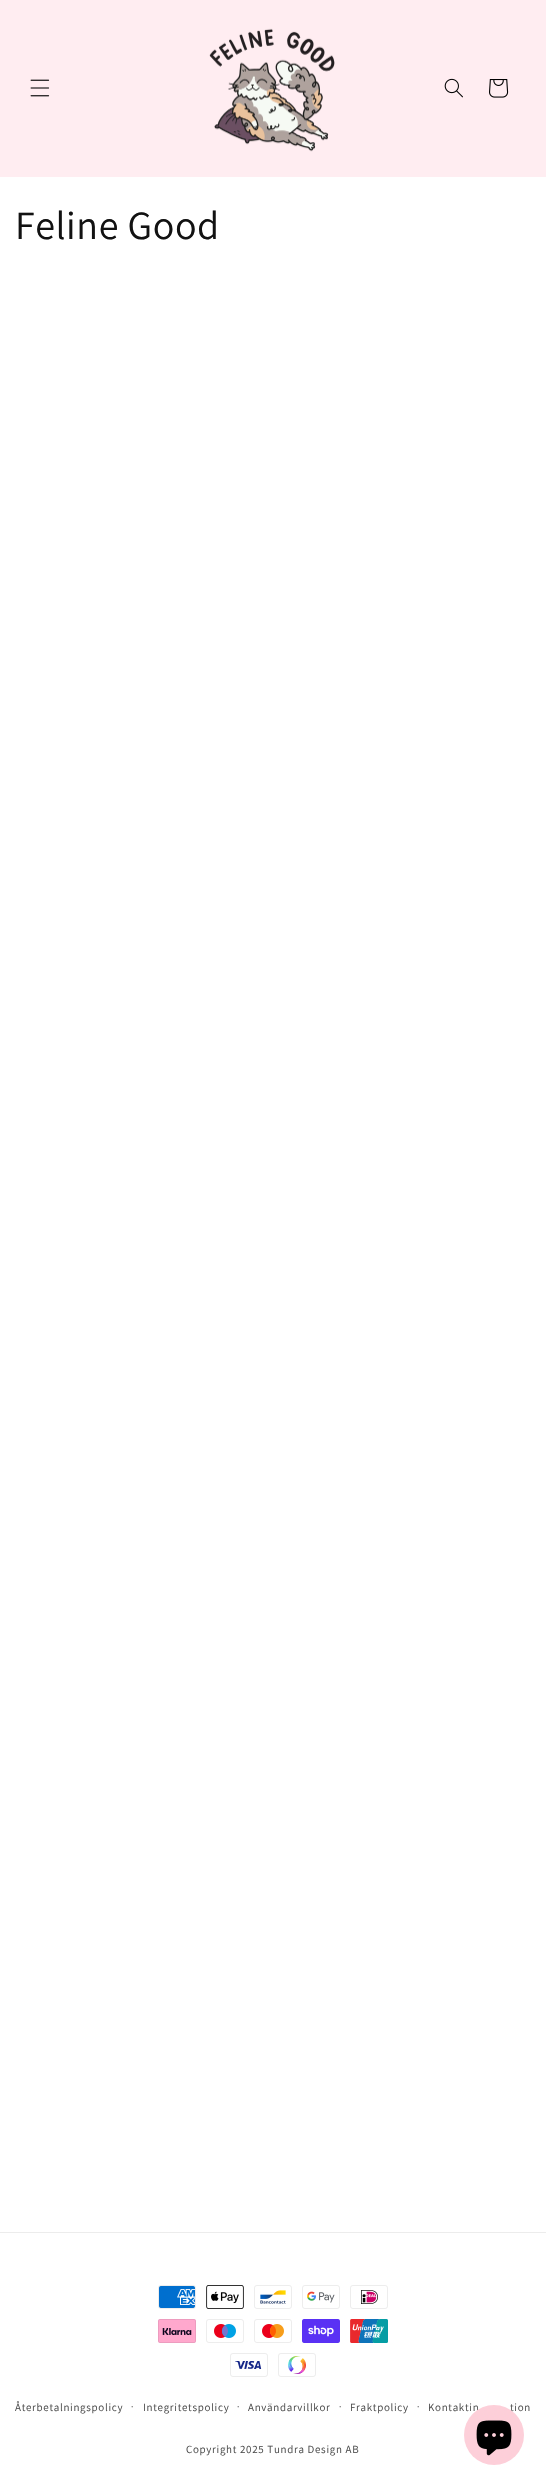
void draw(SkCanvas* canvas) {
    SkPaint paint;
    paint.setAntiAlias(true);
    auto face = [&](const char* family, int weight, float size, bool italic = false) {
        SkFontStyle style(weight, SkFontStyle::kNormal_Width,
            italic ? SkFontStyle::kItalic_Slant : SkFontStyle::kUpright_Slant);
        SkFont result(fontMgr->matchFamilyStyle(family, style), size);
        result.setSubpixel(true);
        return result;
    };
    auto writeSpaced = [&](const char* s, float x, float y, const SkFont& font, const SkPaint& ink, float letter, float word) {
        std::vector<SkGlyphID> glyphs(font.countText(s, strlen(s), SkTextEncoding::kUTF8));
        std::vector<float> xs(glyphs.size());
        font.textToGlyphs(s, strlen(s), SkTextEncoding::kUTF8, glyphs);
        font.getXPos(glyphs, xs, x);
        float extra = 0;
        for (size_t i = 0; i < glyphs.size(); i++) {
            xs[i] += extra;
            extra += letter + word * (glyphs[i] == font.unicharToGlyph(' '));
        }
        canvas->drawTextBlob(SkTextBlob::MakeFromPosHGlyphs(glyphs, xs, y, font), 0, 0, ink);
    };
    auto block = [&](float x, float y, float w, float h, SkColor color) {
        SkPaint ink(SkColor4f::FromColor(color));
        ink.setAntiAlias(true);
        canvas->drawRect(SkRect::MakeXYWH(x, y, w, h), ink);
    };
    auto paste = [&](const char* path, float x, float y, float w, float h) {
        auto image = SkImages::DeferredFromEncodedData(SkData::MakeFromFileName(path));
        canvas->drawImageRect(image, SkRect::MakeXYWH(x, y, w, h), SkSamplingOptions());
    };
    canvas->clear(SK_ColorWHITE);
    block(0, 0, 546, 177, SkColorSetRGB(255, 237, 241));
    paste("pic1.png", 30, 79, 20, 18);
    paste("pic2.png", 209, 28, 126, 124);
    paste("pic3.png", 444, 78, 19, 20);
    paste("pic4.png", 489, 79, 20, 19);
    auto kFont1 = face("Assistant", 400, 40);
    paint.setColor(SkColorSetRGB(18, 18, 18));
    writeSpaced("Feline Good", 15, 239, kFont1, paint, 0.6f, 0);
    block(0, 2232, 546, 1, SkColorSetRGB(236, 236, 236));
    paste("pic5.png", 158, 2285, 38, 24);
    paste("pic6.png", 206, 2285, 38, 24);
    paste("pic7.png", 254, 2285, 38, 24);
    paste("pic8.png", 302, 2285, 38, 24);
    paste("pic9.png", 350, 2285, 38, 24);
    paste("pic10.png", 158, 2319, 38, 24);
    paste("pic11.png", 206, 2319, 38, 24);
    paste("pic12.png", 254, 2319, 38, 24);
    paste("pic13.png", 302, 2319, 38, 24);
    paste("pic14.png", 350, 2319, 38, 24);
    paste("pic15.png", 230, 2353, 38, 24);
    paste("pic16.png", 278, 2353, 38, 24);
    auto kFont2 = face("Assistant", 400, 11);
    paint.setColor(SkColorSetRGB(77, 77, 77));
    writeSpaced("Återbetalningspolicy", 15, 2411, kFont2, paint, 0.7f, 0);
    auto kFont3 = face("Assistant", 400, 10);
    writeSpaced("·", 131, 2410, kFont3, paint, 0.7f, 0);
    writeSpaced("Integritetspolicy", 143, 2411, kFont2, paint, 0.7f, 0);
    writeSpaced("·", 237, 2410, kFont3, paint, 0.7f, 0);
    writeSpaced("Användarvillkor", 248, 2411, kFont2, paint, 0.7f, 0);
    writeSpaced("·", 339, 2410, kFont3, paint, 0.7f, 0);
    writeSpaced("Fraktpolicy", 350, 2411, kFont2, paint, 0.7f, 0);
    writeSpaced("·", 417, 2410, kFont3, paint, 0.7f, 0);
    writeSpaced("Kontaktin", 428, 2411, kFont2, paint, 0.7f, 0);
    writeSpaced("tion", 510, 2411, kFont2, paint, 0.7f, 0);
    writeSpaced("Copyright 2025 Tundra Design AB", 186, 2453, kFont2, paint, 0.7f, 0);
    paint.setColor(SkColorSetRGB(253, 207, 217));
    canvas->drawCircle(494, 2435, 30, paint);
    paste("pic17.png", 476, 2420, 36, 36);
}
